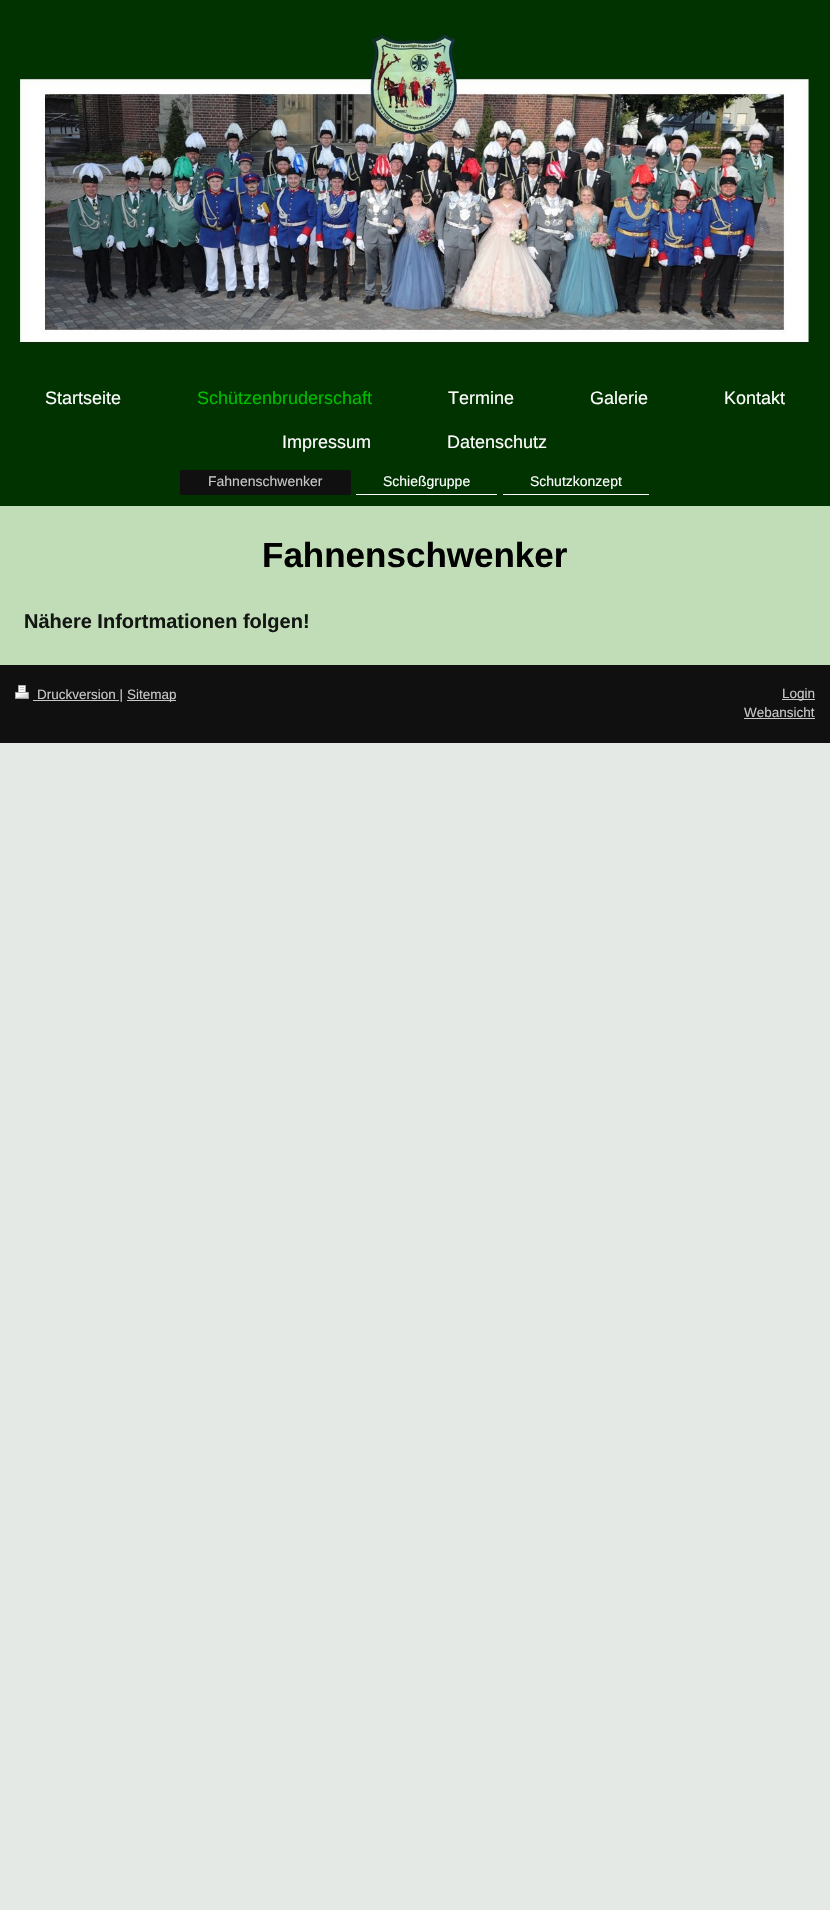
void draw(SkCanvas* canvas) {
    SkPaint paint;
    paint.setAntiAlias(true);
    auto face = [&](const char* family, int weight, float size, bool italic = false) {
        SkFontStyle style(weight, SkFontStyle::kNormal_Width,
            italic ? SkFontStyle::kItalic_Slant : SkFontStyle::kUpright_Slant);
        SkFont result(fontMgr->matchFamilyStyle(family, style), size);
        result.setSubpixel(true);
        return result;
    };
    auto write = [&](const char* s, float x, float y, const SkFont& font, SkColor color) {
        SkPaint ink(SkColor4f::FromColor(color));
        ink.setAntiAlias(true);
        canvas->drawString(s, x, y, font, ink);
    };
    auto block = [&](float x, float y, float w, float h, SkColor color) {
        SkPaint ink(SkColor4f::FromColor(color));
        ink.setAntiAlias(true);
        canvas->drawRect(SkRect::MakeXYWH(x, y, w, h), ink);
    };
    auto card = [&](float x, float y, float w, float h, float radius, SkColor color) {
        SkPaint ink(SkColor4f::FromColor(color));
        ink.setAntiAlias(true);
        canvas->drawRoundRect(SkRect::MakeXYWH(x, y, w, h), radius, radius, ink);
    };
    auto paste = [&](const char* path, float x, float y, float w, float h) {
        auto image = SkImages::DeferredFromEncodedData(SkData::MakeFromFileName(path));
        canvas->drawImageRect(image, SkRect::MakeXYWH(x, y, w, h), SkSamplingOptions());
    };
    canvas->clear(SkColorSetRGB(228, 233, 230));
    block(0, 0, 830, 506, SkColorSetRGB(0, 51, 0));
    paste("pic1.png", 16, 29, 797, 316);
    auto kFont1 = face("Liberation Sans", 400, 18);
    write("Startseite", 45, 404, kFont1, SK_ColorWHITE);
    write("Schützenbruderschaft", 197, 404, kFont1, SkColorSetRGB(0, 189, 0));
    write("Termine", 448, 404, kFont1, SK_ColorWHITE);
    write("Galerie", 590, 404, kFont1, SK_ColorWHITE);
    write("Kontakt", 724, 404, kFont1, SK_ColorWHITE);
    write("Impressum", 282, 448, kFont1, SK_ColorWHITE);
    write("Datenschutz", 447, 448, kFont1, SK_ColorWHITE);
    card(180, 470, 171, 25, 2, SkColorSetRGB(16, 16, 16));
    block(181, 494, 169, 1, SkColorSetRGB(16, 16, 16));
    auto kFont2 = face("Liberation Sans", 400, 14);
    write("Fahnenschwenker", 208, 486, kFont2, SkColorSetRGB(200, 200, 200));
    block(356, 494, 141, 1, SK_ColorWHITE);
    write("Schießgruppe", 383, 486, kFont2, SK_ColorWHITE);
    block(503, 494, 146, 1, SK_ColorWHITE);
    write("Schutzkonzept", 530, 486, kFont2, SK_ColorWHITE);
    block(0, 506, 830, 159, SkColorSetRGB(192, 221, 184));
    auto kFont3 = face("Liberation Sans", 700, 35);
    write("Fahnenschwenker", 262, 567, kFont3, SK_ColorBLACK);
    auto kFont4 = face("Liberation Sans", 700, 20);
    write("Nähere Infortmationen folgen!", 24, 628, kFont4, SkColorSetRGB(19, 22, 18));
    block(0, 665, 830, 78, SkColorSetRGB(16, 16, 16));
    paste("pic2.png", 15, 685, 14, 14);
    block(33, 700, 86, 1, SkColorSetRGB(200, 200, 200));
    auto kFont5 = face("Liberation Sans", 400, 13.5f);
    write("Druckversion |", 37, 699, kFont5, SkColorSetRGB(200, 200, 200));
    block(127, 700, 49, 1, SkColorSetRGB(200, 200, 200));
    write("Sitemap", 127, 699, kFont5, SkColorSetRGB(200, 200, 200));
    block(782, 699, 33, 1, SkColorSetRGB(200, 200, 200));
    write("Login", 782, 698, kFont5, SkColorSetRGB(200, 200, 200));
    write("Webansicht", 744, 717, kFont5, SkColorSetRGB(200, 200, 200));
    block(744, 718, 71, 1, SkColorSetRGB(200, 200, 200));
}
